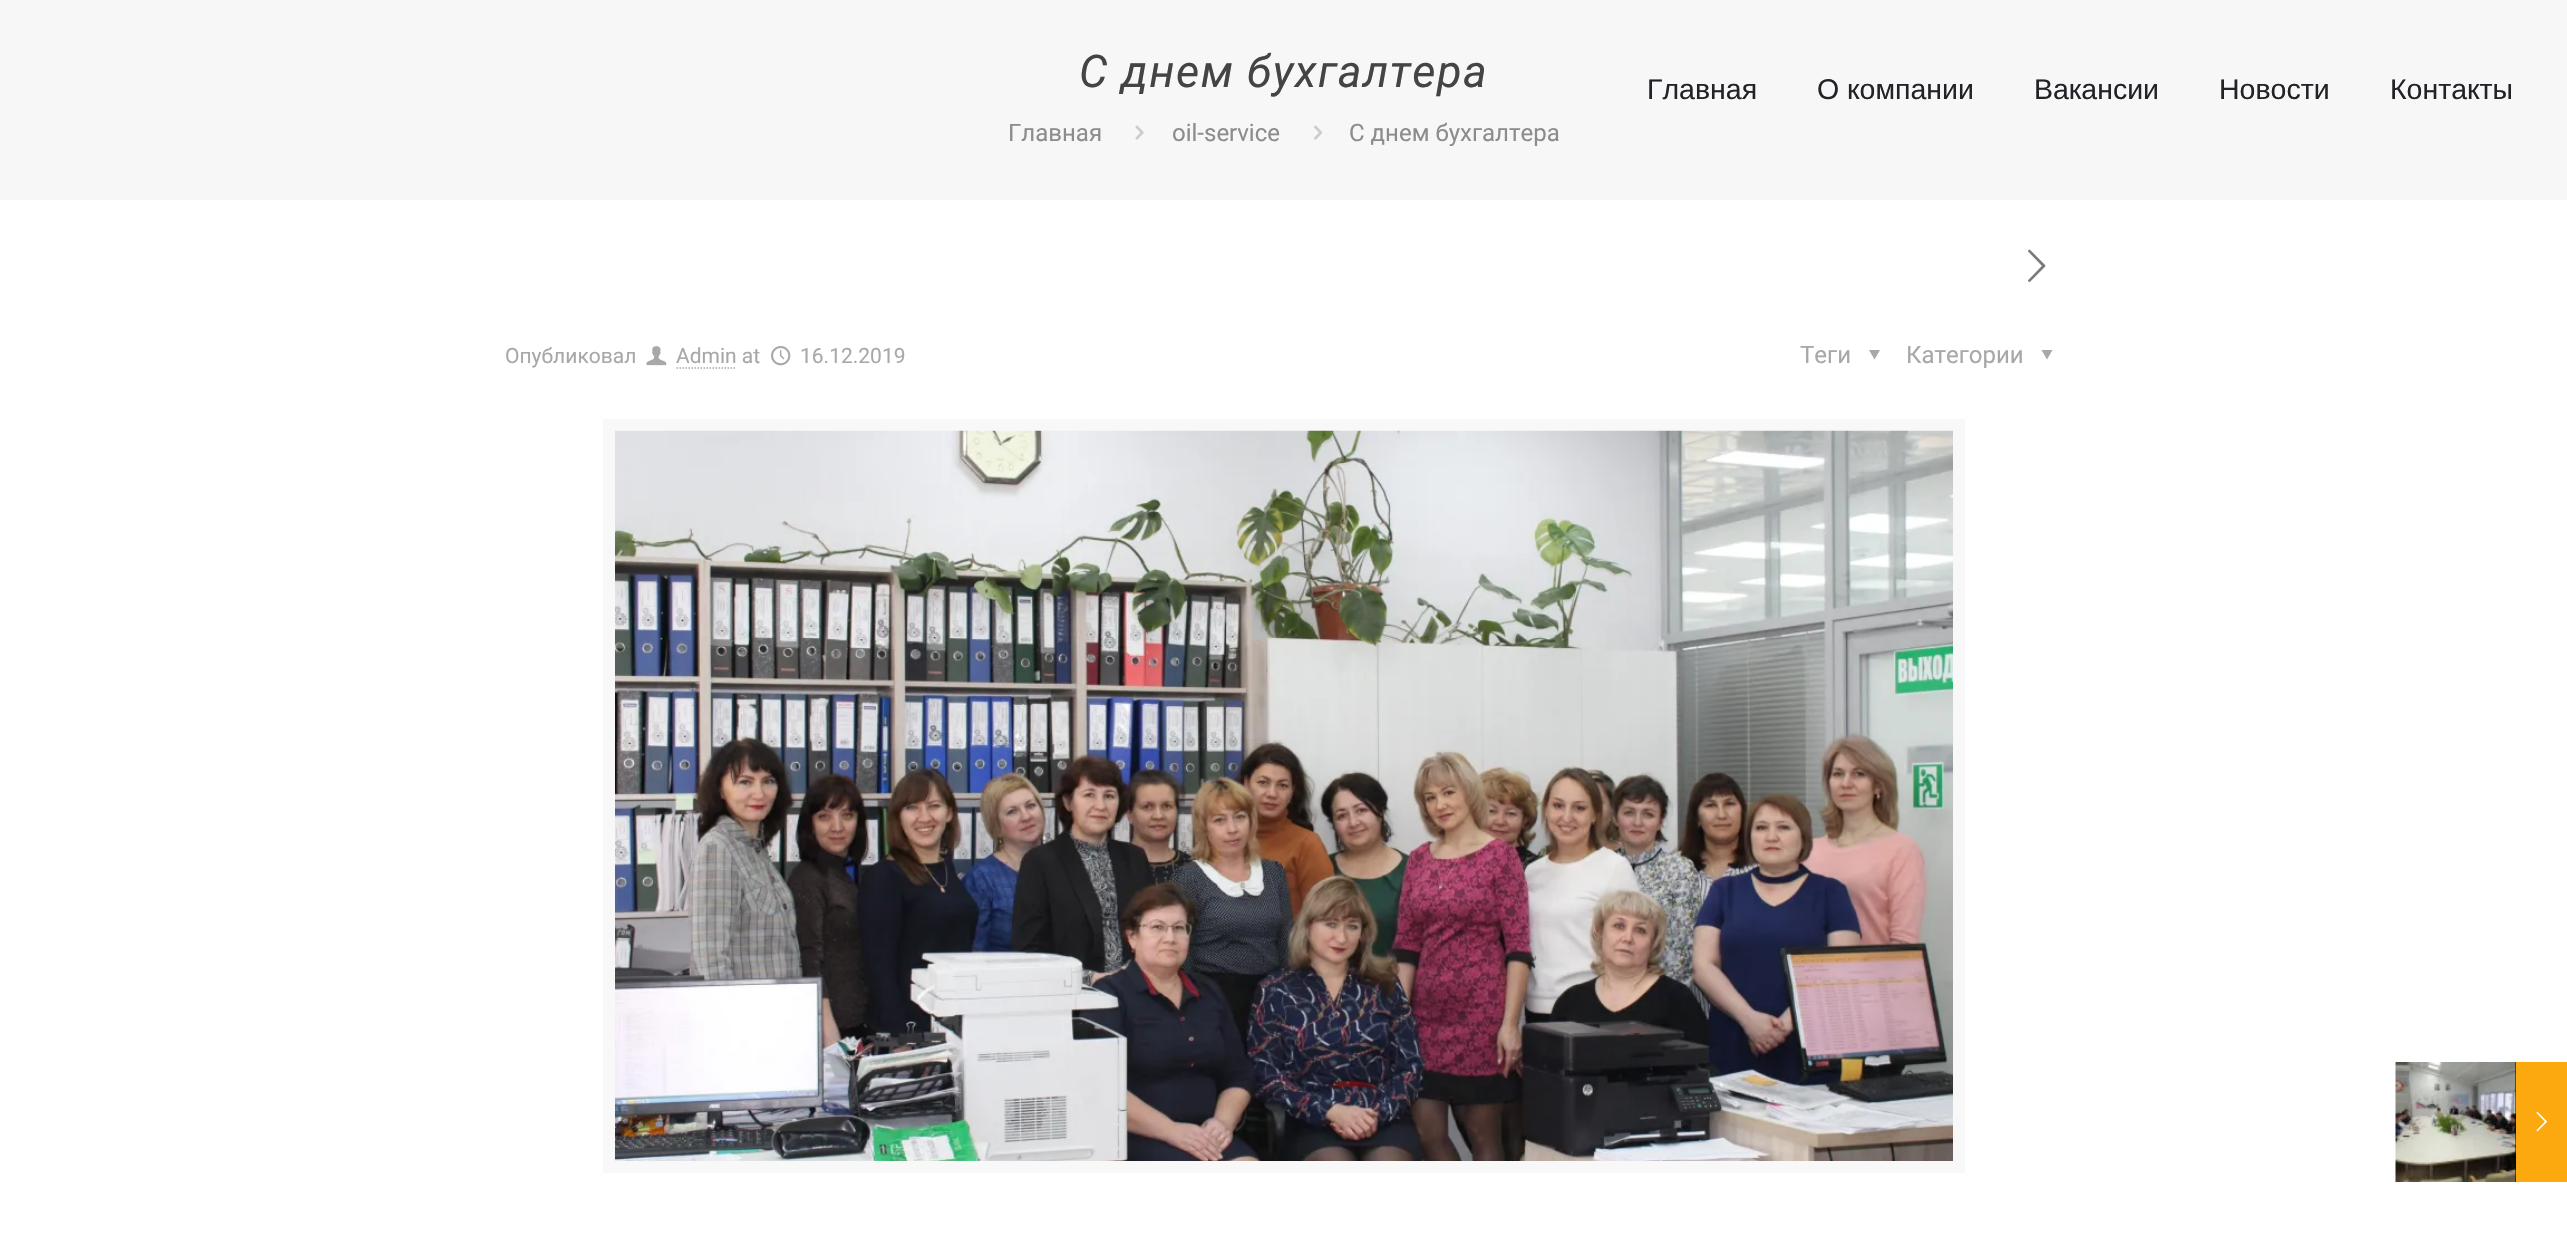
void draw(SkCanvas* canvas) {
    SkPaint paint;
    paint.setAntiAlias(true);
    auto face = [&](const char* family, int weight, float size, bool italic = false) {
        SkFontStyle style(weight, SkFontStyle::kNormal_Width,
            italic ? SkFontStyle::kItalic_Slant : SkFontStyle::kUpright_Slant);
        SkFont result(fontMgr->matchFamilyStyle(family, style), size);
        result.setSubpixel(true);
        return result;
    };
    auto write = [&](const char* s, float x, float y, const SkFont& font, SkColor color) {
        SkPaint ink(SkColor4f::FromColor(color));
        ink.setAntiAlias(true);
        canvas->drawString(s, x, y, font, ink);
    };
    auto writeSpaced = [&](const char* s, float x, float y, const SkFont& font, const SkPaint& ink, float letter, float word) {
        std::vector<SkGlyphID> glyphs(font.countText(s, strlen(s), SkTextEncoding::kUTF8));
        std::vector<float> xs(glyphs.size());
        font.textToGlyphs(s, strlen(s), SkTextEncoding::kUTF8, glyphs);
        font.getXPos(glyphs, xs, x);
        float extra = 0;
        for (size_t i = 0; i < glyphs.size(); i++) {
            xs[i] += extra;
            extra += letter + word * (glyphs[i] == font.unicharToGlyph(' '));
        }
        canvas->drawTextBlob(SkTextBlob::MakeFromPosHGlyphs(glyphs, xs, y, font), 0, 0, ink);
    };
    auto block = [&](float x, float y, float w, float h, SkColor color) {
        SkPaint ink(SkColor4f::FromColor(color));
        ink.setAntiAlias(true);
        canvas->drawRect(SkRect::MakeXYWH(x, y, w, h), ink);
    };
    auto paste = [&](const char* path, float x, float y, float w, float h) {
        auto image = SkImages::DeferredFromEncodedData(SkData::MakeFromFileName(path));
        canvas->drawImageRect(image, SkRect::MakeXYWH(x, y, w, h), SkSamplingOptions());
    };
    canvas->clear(SK_ColorWHITE);
    block(0, 0, 2567, 200, SkColorSetRGB(247, 247, 247));
    auto kFont1 = face("Roboto", 400, 45, true);
    paint.setColor(SkColorSetRGB(68, 68, 68));
    writeSpaced("С днем бухгалтера", 1079, 87, kFont1, paint, 1.5f, 0);
    auto kFont2 = face("Roboto", 400, 24);
    write("Главная", 1008, 141, kFont2, SkColorSetRGB(140, 140, 140));
    paste("pic1.png", 1135, 125, 9, 15);
    write("oil-service", 1172, 141, kFont2, SkColorSetRGB(140, 140, 140));
    paste("pic2.png", 1314, 125, 9, 15);
    write("С днем бухгалтера", 1349, 141, kFont2, SkColorSetRGB(140, 140, 140));
    auto kFont3 = face("Liberation Sans", 400, 28.5f);
    write("Главная", 1647, 99, kFont3, SkColorSetRGB(34, 34, 40));
    write("О компании", 1817, 99, kFont3, SkColorSetRGB(34, 34, 40));
    write("Вакансии", 2034, 99, kFont3, SkColorSetRGB(34, 34, 40));
    write("Новости", 2219, 99, kFont3, SkColorSetRGB(34, 34, 40));
    write("Контакты", 2390, 99, kFont3, SkColorSetRGB(34, 34, 40));
    paste("pic3.png", 2028, 249, 18, 33);
    auto kFont4 = face("Roboto", 400, 21);
    write("Опубликовал", 505, 363, kFont4, SkColorSetRGB(168, 168, 168));
    paste("pic4.png", 646, 346, 21, 20);
    write("Admin at", 676, 363, kFont4, SkColorSetRGB(168, 168, 168));
    paint.setStyle(SkPaint::kStroke_Style);
    paint.setStrokeWidth(1.5f);
    paint.setColor(SkColorSetRGB(168, 168, 168));
    paint.setPathEffect(SkDashPathEffect::Make({{1.5f, 1.5f}}, 0));
    canvas->drawPath(SkPathBuilder().moveTo(676.5f, 368).lineTo(736.5f, 368).detach(), paint);
    paint.setPathEffect(nullptr);
    paste("pic5.png", 771, 346, 20, 20);
    write("16.12.2019", 800, 363, kFont4, SkColorSetRGB(168, 168, 168));
    write("Теги", 1800, 363, kFont2, SkColorSetRGB(168, 168, 168));
    paint.setStyle(SkPaint::kFill_Style);
    canvas->drawPath(SkPathBuilder().moveTo(1880, 350).lineTo(1874.5f, 359.5f).lineTo(1869, 350).close().detach(), paint);
    write("Категории", 1906, 363, kFont2, SkColorSetRGB(168, 168, 168));
    canvas->drawPath(SkPathBuilder().moveTo(2052.5f, 350).lineTo(2047, 359.5f).lineTo(2041.5f, 350).close().detach(), paint);
    paint.setStyle(SkPaint::kStroke_Style);
    paint.setStrokeWidth(12);
    paint.setColor(SkColorSetRGB(248, 248, 248));
    canvas->drawRect(SkRect::MakeXYWH(609, 425, 1350, 742), paint);
    paste("pic6.png", 615, 430, 1338, 731);
    block(2515, 1062, 1, 120, SK_ColorBLACK);
    paste("pic7.png", 2395, 1062, 121, 120);
    block(2516, 1062, 51, 120, SkColorSetRGB(252, 168, 15));
    paste("pic8.png", 2536, 1111, 11, 21);
}
